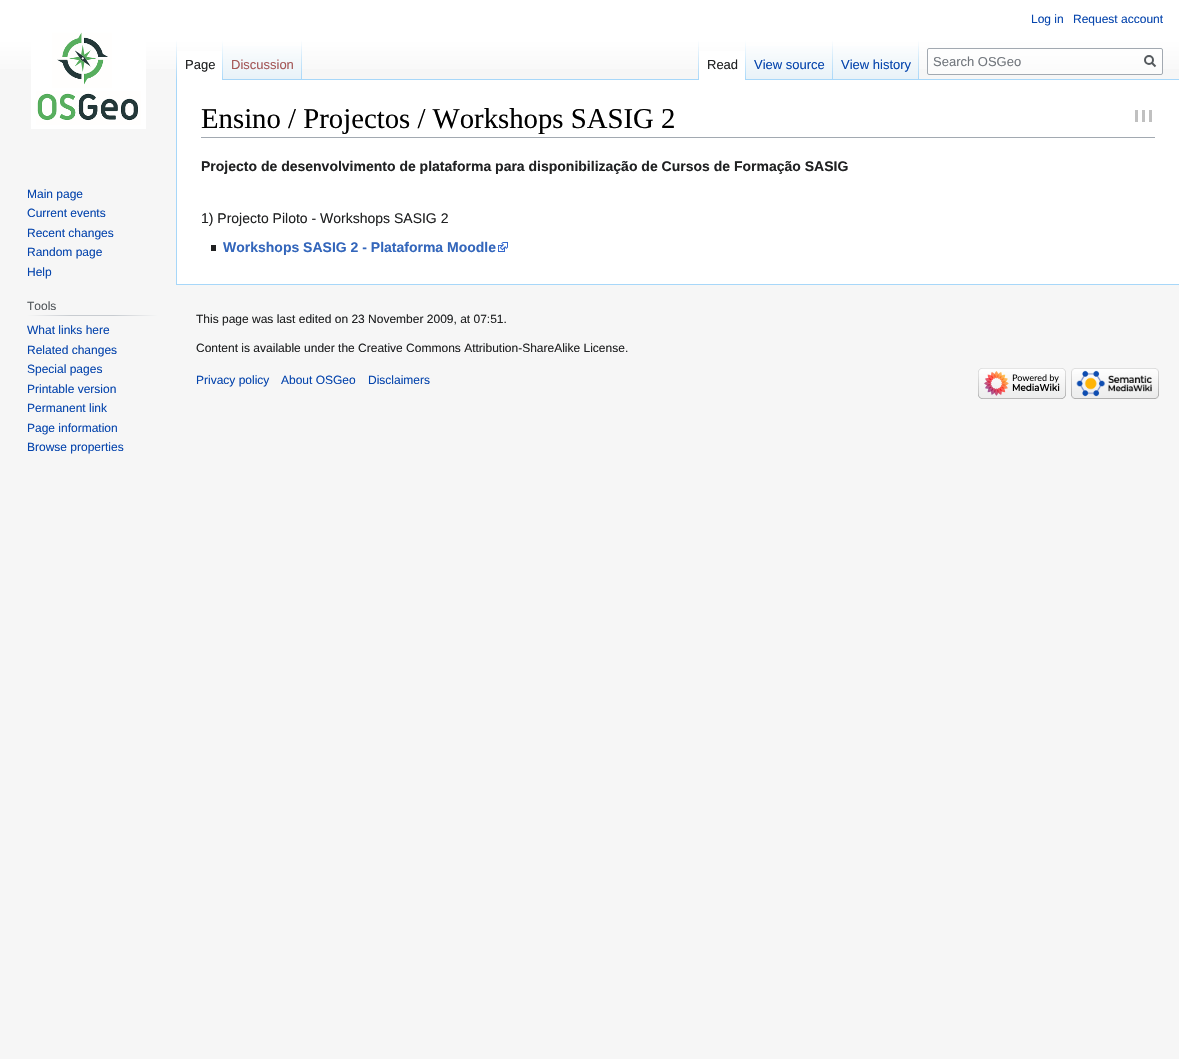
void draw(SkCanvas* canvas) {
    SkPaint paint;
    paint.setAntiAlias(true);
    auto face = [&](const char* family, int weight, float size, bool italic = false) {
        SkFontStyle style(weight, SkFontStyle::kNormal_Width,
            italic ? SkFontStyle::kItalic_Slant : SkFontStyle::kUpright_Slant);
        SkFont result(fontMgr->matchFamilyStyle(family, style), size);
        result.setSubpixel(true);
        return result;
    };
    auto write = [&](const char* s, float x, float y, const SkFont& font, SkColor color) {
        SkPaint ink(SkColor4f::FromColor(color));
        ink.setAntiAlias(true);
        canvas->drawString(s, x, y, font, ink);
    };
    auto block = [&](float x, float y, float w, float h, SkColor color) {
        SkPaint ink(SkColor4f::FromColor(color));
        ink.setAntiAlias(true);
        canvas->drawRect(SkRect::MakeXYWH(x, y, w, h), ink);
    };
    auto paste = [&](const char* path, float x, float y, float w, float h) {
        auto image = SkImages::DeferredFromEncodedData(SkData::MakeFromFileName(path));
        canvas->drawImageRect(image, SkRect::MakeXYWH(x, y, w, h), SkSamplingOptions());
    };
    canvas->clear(SkColorSetRGB(246, 246, 246));
    {
        const SkColor colors[] = {SK_ColorWHITE, SkColorSetRGB(246, 246, 246)};
        const float stops[] = {0.5f, 1};
        const SkPoint ends[] = {{590, 0}, {590, 80}};
        paint.setShader(SkGradientShader::MakeLinear(ends, colors, stops, 2, SkTileMode::kClamp));
        paint.setAlpha(255);
    }
    canvas->drawRect(SkRect::MakeXYWH(0, 0, 1179, 69), paint);
    auto kFont1 = face("Liberation Sans", 400, 12);
    write("Log in", 1031, 23, kFont1, SkColorSetRGB(6, 69, 173));
    write("Request account", 1073, 23, kFont1, SkColorSetRGB(6, 69, 173));
    block(176, 284, 1003, 1, SkColorSetRGB(167, 215, 249));
    block(176, 79, 1, 206, SkColorSetRGB(167, 215, 249));
    {
        const SkColor colors[] = {SkColorSetARGB(0, 167, 215, 249), SkColorSetRGB(167, 215, 249)};
        const float stops[] = {0, 1};
        const SkPoint ends[] = {{177, 40}, {177, 80}};
        paint.setShader(SkGradientShader::MakeLinear(ends, colors, stops, 2, SkTileMode::kClamp));
        paint.setAlpha(255);
    }
    canvas->drawRect(SkRect::MakeXYWH(176, 40, 1, 40), paint);
    block(177, 51, 45, 29, SK_ColorWHITE);
    {
        const SkColor colors[] = {SK_ColorWHITE, SkColorSetRGB(167, 215, 249)};
        const float stops[] = {0, 1};
        const SkPoint ends[] = {{223, 40}, {223, 80}};
        paint.setShader(SkGradientShader::MakeLinear(ends, colors, stops, 2, SkTileMode::kClamp));
        paint.setAlpha(255);
    }
    canvas->drawRect(SkRect::MakeXYWH(222, 40, 1, 40), paint);
    auto kFont2 = face("Liberation Sans", 400, 13);
    write("Page", 185, 69, kFont2, SkColorSetRGB(32, 33, 34));
    {
        const SkColor colors[] = {SkColorSetRGB(119, 193, 246), SkColorSetRGB(232, 242, 248), SK_ColorWHITE};
        const float stops[] = {0, 0.03f, 1};
        const SkPoint ends[] = {{263, 80}, {263, 40}};
        paint.setShader(SkGradientShader::MakeLinear(ends, colors, stops, 3, SkTileMode::kClamp));
        paint.setAlpha(255);
    }
    canvas->drawRect(SkRect::MakeXYWH(223, 46, 79, 34), paint);
    {
        const SkColor colors[] = {SkColorSetARGB(0, 167, 215, 249), SkColorSetRGB(167, 215, 249)};
        const float stops[] = {0, 1};
        const SkPoint ends[] = {{302, 40}, {302, 80}};
        paint.setShader(SkGradientShader::MakeLinear(ends, colors, stops, 2, SkTileMode::kClamp));
        paint.setAlpha(255);
    }
    canvas->drawRect(SkRect::MakeXYWH(301, 40, 1, 40), paint);
    write("Discussion", 231, 69, kFont2, SkColorSetRGB(165, 88, 88));
    block(302, 79, 877, 1, SkColorSetRGB(167, 215, 249));
    {
        const SkColor colors[] = {SkColorSetARGB(0, 167, 215, 249), SkColorSetRGB(167, 215, 249)};
        const float stops[] = {0, 1};
        const SkPoint ends[] = {{699, 40}, {699, 80}};
        paint.setShader(SkGradientShader::MakeLinear(ends, colors, stops, 2, SkTileMode::kClamp));
        paint.setAlpha(255);
    }
    canvas->drawRect(SkRect::MakeXYWH(698, 40, 1, 40), paint);
    block(699, 51, 46, 29, SK_ColorWHITE);
    {
        const SkColor colors[] = {SK_ColorWHITE, SkColorSetRGB(167, 215, 249)};
        const float stops[] = {0, 1};
        const SkPoint ends[] = {{746, 40}, {746, 80}};
        paint.setShader(SkGradientShader::MakeLinear(ends, colors, stops, 2, SkTileMode::kClamp));
        paint.setAlpha(255);
    }
    canvas->drawRect(SkRect::MakeXYWH(745, 40, 1, 40), paint);
    write("Read", 707, 69, kFont2, SkColorSetRGB(32, 33, 34));
    {
        const SkColor colors[] = {SkColorSetRGB(119, 193, 246), SkColorSetRGB(232, 242, 248), SK_ColorWHITE};
        const float stops[] = {0, 0.03f, 1};
        const SkPoint ends[] = {{790, 80}, {790, 40}};
        paint.setShader(SkGradientShader::MakeLinear(ends, colors, stops, 3, SkTileMode::kClamp));
        paint.setAlpha(255);
    }
    canvas->drawRect(SkRect::MakeXYWH(746, 46, 87, 33), paint);
    {
        const SkColor colors[] = {SkColorSetARGB(0, 167, 215, 249), SkColorSetRGB(167, 215, 249)};
        const float stops[] = {0, 1};
        const SkPoint ends[] = {{833, 40}, {833, 80}};
        paint.setShader(SkGradientShader::MakeLinear(ends, colors, stops, 2, SkTileMode::kClamp));
        paint.setAlpha(255);
    }
    canvas->drawRect(SkRect::MakeXYWH(832, 40, 1, 40), paint);
    write("View source", 754, 69, kFont2, SkColorSetRGB(6, 69, 173));
    {
        const SkColor colors[] = {SkColorSetRGB(119, 193, 246), SkColorSetRGB(232, 242, 248), SK_ColorWHITE};
        const float stops[] = {0, 0.03f, 1};
        const SkPoint ends[] = {{876, 80}, {876, 40}};
        paint.setShader(SkGradientShader::MakeLinear(ends, colors, stops, 3, SkTileMode::kClamp));
        paint.setAlpha(255);
    }
    canvas->drawRect(SkRect::MakeXYWH(833, 46, 86, 33), paint);
    {
        const SkColor colors[] = {SkColorSetARGB(0, 167, 215, 249), SkColorSetRGB(167, 215, 249)};
        const float stops[] = {0, 1};
        const SkPoint ends[] = {{919, 40}, {919, 80}};
        paint.setShader(SkGradientShader::MakeLinear(ends, colors, stops, 2, SkTileMode::kClamp));
        paint.setAlpha(255);
    }
    canvas->drawRect(SkRect::MakeXYWH(918, 40, 1, 40), paint);
    write("View history", 841, 69, kFont2, SkColorSetRGB(6, 69, 173));
    paint.setShader(nullptr);
    paint.setColor(SkColorSetARGB(128, 255, 255, 255));
    canvas->drawRoundRect(SkRect::MakeXYWH(927.5f, 48.5f, 235, 26), 1.5f, 1.5f, paint);
    paint.setStyle(SkPaint::kStroke_Style);
    paint.setStrokeWidth(1);
    paint.setColor(SkColorSetRGB(162, 169, 177));
    canvas->drawRoundRect(SkRect::MakeXYWH(927.5f, 48.5f, 235, 26), 1.5f, 1.5f, paint);
    write("Search OSGeo", 933, 66, kFont2, SkColorSetRGB(114, 119, 125));
    paint.setStrokeWidth(2);
    paint.setColor(SkColorSetRGB(84, 89, 93));
    canvas->drawPath(SkPathBuilder().moveTo(1155.5f, 66.5f).lineTo(1151.5f, 62.5f).detach(), paint);
    canvas->drawCircle(1149, 60, 4, paint);
    paste("pic1.png", 31, 32, 115, 97);
    write("Main page", 27, 198, kFont1, SkColorSetRGB(6, 69, 173));
    write("Current events", 27, 217, kFont1, SkColorSetRGB(6, 69, 173));
    write("Recent changes", 27, 237, kFont1, SkColorSetRGB(6, 69, 173));
    write("Random page", 27, 256, kFont1, SkColorSetRGB(6, 69, 173));
    write("Help", 27, 276, kFont1, SkColorSetRGB(6, 69, 173));
    paint.setStyle(SkPaint::kFill_Style);
    {
        const SkColor colors[] = {SkColorSetRGB(246, 246, 246), SkColorSetRGB(200, 204, 209), SkColorSetRGB(200, 204, 209), SkColorSetRGB(246, 246, 246)};
        const float stops[] = {0, 0.33f, 0.66f, 1};
        const SkPoint ends[] = {{27, 316}, {158, 316}};
        paint.setShader(SkGradientShader::MakeLinear(ends, colors, stops, 4, SkTileMode::kClamp));
        paint.setAlpha(255);
    }
    canvas->drawRect(SkRect::MakeXYWH(27, 315, 131, 1), paint);
    write("Tools", 27, 310, kFont1, SkColorSetRGB(84, 89, 93));
    write("What links here", 27, 334, kFont1, SkColorSetRGB(6, 69, 173));
    write("Related changes", 27, 354, kFont1, SkColorSetRGB(6, 69, 173));
    write("Special pages", 27, 373, kFont1, SkColorSetRGB(6, 69, 173));
    write("Printable version", 27, 393, kFont1, SkColorSetRGB(6, 69, 173));
    write("Permanent link", 27, 412, kFont1, SkColorSetRGB(6, 69, 173));
    write("Page information", 27, 432, kFont1, SkColorSetRGB(6, 69, 173));
    write("Browse properties", 27, 451, kFont1, SkColorSetRGB(6, 69, 173));
    block(177, 80, 1002, 204, SK_ColorWHITE);
    block(201, 137, 954, 1, SkColorSetRGB(162, 169, 177));
    auto kFont3 = face("Liberation Serif", 400, 28.75f);
    write("Ensino / Projectos / Workshops SASIG 2", 201, 128, kFont3, SK_ColorBLACK);
    block(1142, 110, 3, 12, SkColorSetRGB(192, 192, 192));
    block(1135, 110, 3, 12, SkColorSetRGB(192, 192, 192));
    block(1149, 110, 3, 12, SkColorSetRGB(192, 192, 192));
    auto kFont4 = face("Liberation Sans", 700, 14);
    write("Projecto de desenvolvimento de plataforma para disponibilização de Cursos de Formação SASIG", 201, 171, kFont4, SkColorSetRGB(32, 33, 34));
    auto kFont5 = face("Liberation Sans", 400, 14);
    write("1) Projecto Piloto - Workshops SASIG 2", 201, 223, kFont5, SkColorSetRGB(32, 33, 34));
    block(211, 245, 5, 6, SkColorSetRGB(32, 33, 34));
    write("Workshops SASIG 2 - Plataforma Moodle", 223, 252, kFont4, SkColorSetRGB(51, 102, 187));
    paste("pic2.png", 498, 242, 10, 10);
    write("This page was last edited on 23 November 2009, at 07:51.", 196, 323, kFont1, SkColorSetRGB(32, 33, 34));
    write("Content is available under the Creative Commons Attribution-ShareAlike License.", 196, 352, kFont1, SkColorSetRGB(32, 33, 34));
    write("Privacy policy", 196, 384, kFont1, SkColorSetRGB(6, 69, 173));
    write("About OSGeo", 281, 384, kFont1, SkColorSetRGB(6, 69, 173));
    write("Disclaimers", 368, 384, kFont1, SkColorSetRGB(6, 69, 173));
    paste("pic3.png", 978, 368, 88, 31);
    paste("pic4.png", 1071, 368, 88, 31);
}
